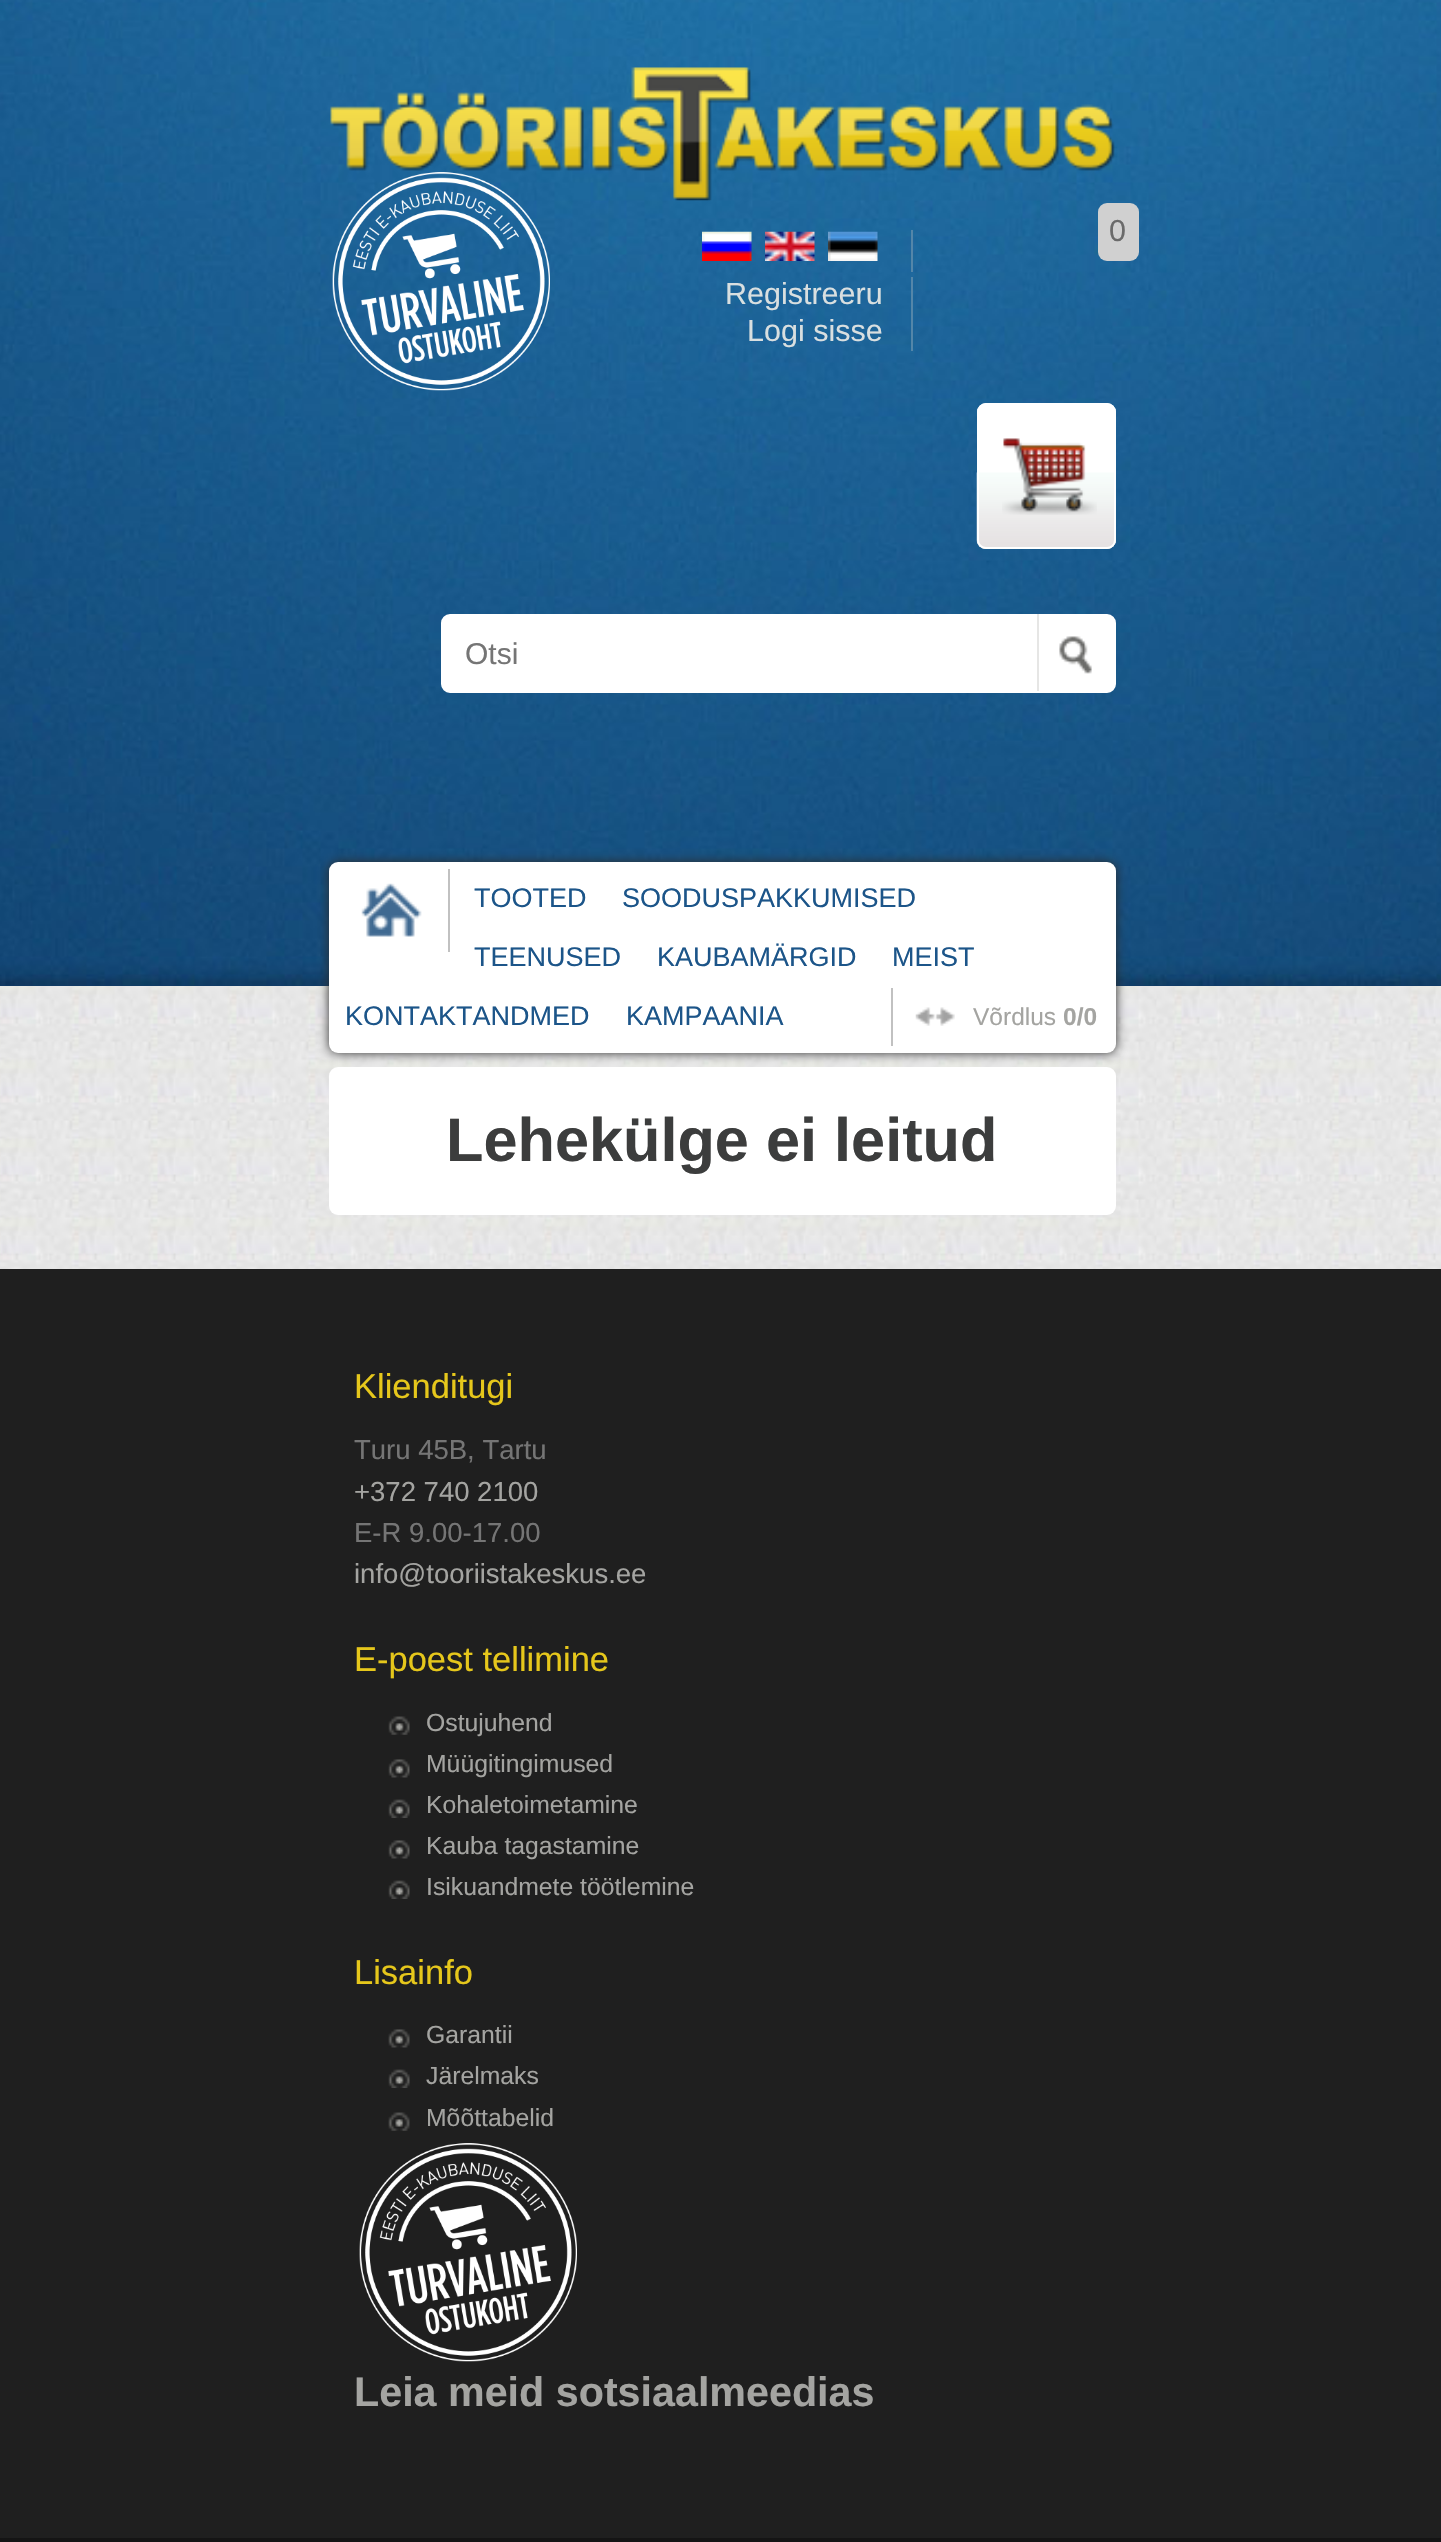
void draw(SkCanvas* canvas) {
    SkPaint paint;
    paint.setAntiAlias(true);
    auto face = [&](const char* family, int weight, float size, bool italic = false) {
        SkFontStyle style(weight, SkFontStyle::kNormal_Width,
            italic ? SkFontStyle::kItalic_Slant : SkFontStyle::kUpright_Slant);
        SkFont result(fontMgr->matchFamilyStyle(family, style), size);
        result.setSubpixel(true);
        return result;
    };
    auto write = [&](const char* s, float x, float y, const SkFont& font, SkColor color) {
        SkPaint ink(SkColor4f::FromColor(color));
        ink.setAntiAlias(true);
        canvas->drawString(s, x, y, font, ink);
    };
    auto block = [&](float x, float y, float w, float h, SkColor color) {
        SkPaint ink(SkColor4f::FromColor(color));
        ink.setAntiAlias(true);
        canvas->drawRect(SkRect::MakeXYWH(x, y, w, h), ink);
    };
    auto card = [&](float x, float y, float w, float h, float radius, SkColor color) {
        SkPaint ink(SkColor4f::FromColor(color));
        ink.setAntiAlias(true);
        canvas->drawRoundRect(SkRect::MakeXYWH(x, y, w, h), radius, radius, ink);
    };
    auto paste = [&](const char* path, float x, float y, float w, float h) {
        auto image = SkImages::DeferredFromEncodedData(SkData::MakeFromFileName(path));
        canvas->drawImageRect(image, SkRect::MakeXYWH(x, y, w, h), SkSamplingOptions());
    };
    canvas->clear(SK_ColorWHITE);
    paste("pic1.png", 0, 986, 1441, 283);
    block(0, 985, 1441, 1, SkColorSetRGB(15, 58, 103));
    paste("pic2.png", 0, 0, 1441, 986);
    paste("pic3.png", 330, 67, 785, 134);
    paste("pic4.png", 332, 172, 218, 219);
    card(977, 403, 139, 146, 9, SK_ColorWHITE);
    paste("pic5.png", 976, 472, 140, 77);
    paint.setStyle(SkPaint::kStroke_Style);
    paint.setStrokeWidth(2);
    paint.setColor(SK_ColorWHITE);
    canvas->drawRoundRect(SkRect::MakeXYWH(978, 404, 137, 144), 8, 8, paint);
    paste("pic6.png", 1002, 438, 95, 77);
    card(1098, 203, 41, 58, 9, SkColorSetRGB(208, 208, 208));
    auto kFont1 = face("Liberation Sans", 400, 30.5f);
    write("0", 1109, 241, kFont1, SkColorSetRGB(106, 106, 106));
    block(911, 230, 2, 42, SkColorSetRGB(84, 134, 169));
    paste("pic7.png", 702, 231, 50, 30);
    paste("pic8.png", 765, 231, 50, 30);
    paste("pic9.png", 828, 231, 50, 30);
    block(911, 277, 2, 74, SkColorSetRGB(84, 134, 169));
    write("Registreeru", 725, 304, kFont1, SkColorSetRGB(217, 223, 224));
    write("Logi sisse", 747, 341, kFont1, SkColorSetRGB(217, 223, 224));
    paint.setStyle(SkPaint::kFill_Style);
    canvas->drawRoundRect(SkRect::MakeXYWH(442, 615, 673, 77), 8, 8, paint);
    paint.setStyle(SkPaint::kStroke_Style);
    canvas->drawRoundRect(SkRect::MakeXYWH(442, 615, 673, 77), 8, 8, paint);
    auto kFont2 = face("Liberation Sans", 400, 30);
    write("Otsi", 465, 664, kFont2, SkColorSetRGB(117, 117, 117));
    paste("pic10.png", 1059, 636, 33, 38);
    block(1037, 614, 2, 77, SkColorSetRGB(230, 230, 229));
    card(329, 1067, 787, 148, 9, SK_ColorWHITE);
    paint.setStyle(SkPaint::kFill_Style);
    paint.setColor(SkColorSetRGB(43, 43, 43));
    paint.setMaskFilter(SkMaskFilter::MakeBlur(kNormal_SkBlurStyle, 5.5f));
    canvas->drawRoundRect(SkRect::MakeXYWH(329, 862, 787, 191), 9, 9, paint);
    paint.setMaskFilter(nullptr);
    card(329, 862, 787, 191, 9, SK_ColorWHITE);
    paste("pic11.png", 361, 883, 61, 54);
    block(448, 869, 2, 83, SkColorSetRGB(193, 193, 193));
    auto kFont3 = face("Liberation Sans", 400, 27);
    write("TOOTED", 474, 907, kFont3, SkColorSetRGB(28, 85, 137));
    write("SOODUSPAKKUMISED", 622, 907, kFont3, SkColorSetRGB(28, 85, 137));
    write("TEENUSED", 474, 966, kFont3, SkColorSetRGB(28, 85, 137));
    write("KAUBAMÄRGID", 657, 966, kFont3, SkColorSetRGB(28, 85, 137));
    write("MEIST", 892, 966, kFont3, SkColorSetRGB(28, 85, 137));
    write("KONTAKTANDMED", 345, 1025, kFont3, SkColorSetRGB(28, 85, 137));
    write("KAMPAANIA", 626, 1025, kFont3, SkColorSetRGB(28, 85, 137));
    block(891, 988, 2, 58, SkColorSetRGB(193, 193, 193));
    paste("pic12.png", 915, 1007, 40, 19);
    auto kFont4 = face("Liberation Sans", 400, 24.5f);
    write("Võrdlus", 973, 1025, kFont4, SkColorSetRGB(164, 164, 161));
    auto kFont5 = face("Liberation Sans", 700, 24.5f);
    write("0/0", 1063, 1025, kFont5, SkColorSetRGB(164, 164, 161));
    auto kFont6 = face("Liberation Sans", 700, 61.25f);
    write("Lehekülge ei leitud", 446, 1161, kFont6, SkColorSetRGB(60, 61, 61));
    block(0, 1269, 1441, 1269, SkColorSetRGB(31, 31, 31));
    auto kFont7 = face("Liberation Sans", 400, 34.5f);
    write("Klienditugi", 354, 1398, kFont7, SkColorSetRGB(230, 199, 27));
    auto kFont8 = face("Liberation Sans", 400, 27.5f);
    write("Turu 45B, Tartu", 354, 1459, kFont8, SkColorSetRGB(117, 117, 117));
    write("+372 740 2100", 354, 1501, kFont8, SkColorSetRGB(164, 164, 161));
    write("E-R 9.00-17.00", 354, 1542, kFont8, SkColorSetRGB(117, 117, 117));
    write("info@tooriistakeskus.ee", 354, 1583, kFont8, SkColorSetRGB(164, 164, 161));
    write("E-poest tellimine", 354, 1671, kFont7, SkColorSetRGB(230, 199, 27));
    paste("pic13.png", 388, 1716, 22, 19);
    auto kFont9 = face("Liberation Sans", 400, 24.75f);
    write("Ostujuhend", 426, 1731, kFont9, SkColorSetRGB(164, 164, 161));
    paste("pic14.png", 388, 1759, 22, 19);
    write("Müügitingimused", 426, 1772, kFont9, SkColorSetRGB(164, 164, 161));
    paste("pic15.png", 388, 1799, 22, 19);
    write("Kohaletoimetamine", 426, 1813, kFont9, SkColorSetRGB(164, 164, 161));
    paste("pic14.png", 388, 1840, 22, 19);
    write("Kauba tagastamine", 426, 1854, kFont9, SkColorSetRGB(164, 164, 161));
    paste("pic15.png", 388, 1880, 22, 19);
    write("Isikuandmete töötlemine", 426, 1895, kFont9, SkColorSetRGB(164, 164, 161));
    write("Lisainfo", 354, 1984, kFont7, SkColorSetRGB(230, 199, 27));
    paste("pic16.png", 388, 2029, 22, 19);
    write("Garantii", 426, 2043, kFont9, SkColorSetRGB(164, 164, 161));
    paste("pic17.png", 388, 2069, 22, 19);
    write("Järelmaks", 426, 2084, kFont9, SkColorSetRGB(164, 164, 161));
    paste("pic18.png", 388, 2112, 22, 19);
    write("Mõõttabelid", 426, 2126, kFont9, SkColorSetRGB(164, 164, 161));
    paste("pic19.png", 359, 2143, 218, 219);
    auto kFont10 = face("Liberation Sans", 700, 41.25f);
    write("Leia meid sotsiaalmeedias", 354, 2406, kFont10, SkColorSetRGB(164, 164, 161));
    block(0, 2538, 1441, 4, SkColorSetRGB(20, 20, 20));
}
